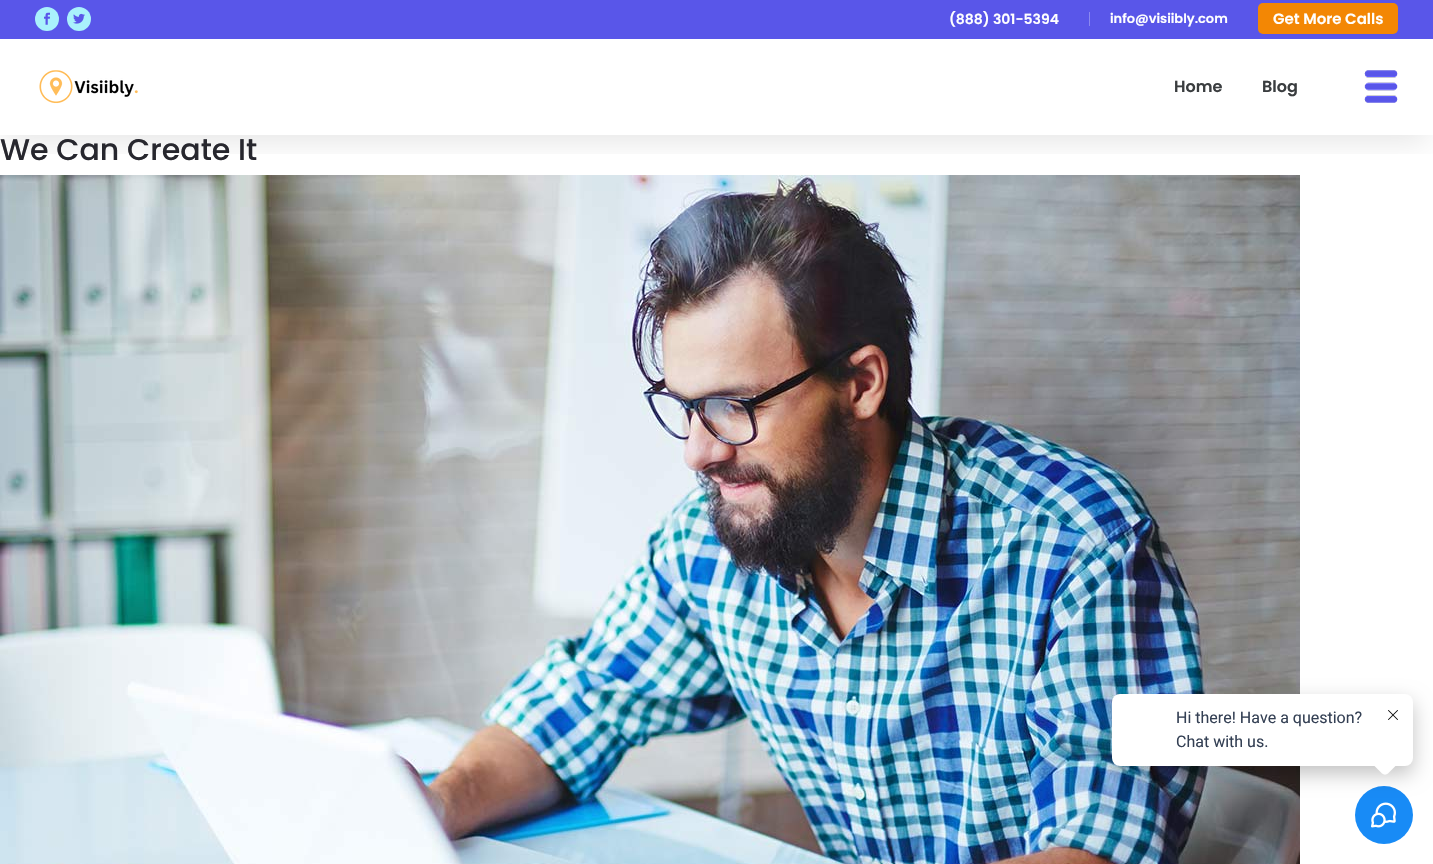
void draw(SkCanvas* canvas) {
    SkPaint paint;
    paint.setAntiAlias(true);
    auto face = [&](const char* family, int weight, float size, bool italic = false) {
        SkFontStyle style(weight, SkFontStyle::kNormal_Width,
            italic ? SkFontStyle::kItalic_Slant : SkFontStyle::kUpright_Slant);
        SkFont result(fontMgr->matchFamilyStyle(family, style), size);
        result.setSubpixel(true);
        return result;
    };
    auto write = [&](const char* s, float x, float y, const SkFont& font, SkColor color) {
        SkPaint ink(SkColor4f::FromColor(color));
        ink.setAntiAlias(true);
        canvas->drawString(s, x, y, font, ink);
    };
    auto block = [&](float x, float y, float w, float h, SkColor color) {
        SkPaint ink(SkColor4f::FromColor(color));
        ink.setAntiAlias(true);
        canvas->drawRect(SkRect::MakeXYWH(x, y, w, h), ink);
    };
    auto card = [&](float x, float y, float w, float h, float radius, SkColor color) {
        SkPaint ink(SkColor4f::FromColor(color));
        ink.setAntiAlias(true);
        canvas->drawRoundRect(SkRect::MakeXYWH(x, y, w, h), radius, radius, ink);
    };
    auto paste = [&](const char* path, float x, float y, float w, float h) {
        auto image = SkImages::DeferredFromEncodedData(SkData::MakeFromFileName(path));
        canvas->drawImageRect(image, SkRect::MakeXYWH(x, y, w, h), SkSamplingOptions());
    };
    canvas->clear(SK_ColorWHITE);
    block(0, 0, 1433, 39, SkColorSetRGB(89, 86, 233));
    paint.setColor(SkColorSetRGB(169, 241, 252));
    canvas->drawCircle(47, 19, 12, paint);
    paste("pic1.png", 44, 12, 6, 13);
    canvas->drawCircle(79, 19, 12, paint);
    paste("pic2.png", 73, 13, 12, 11);
    block(1089, 12, 1, 14, SkColorSetRGB(139, 137, 240));
    auto kFont1 = face("Poppins", 600, 14);
    write("(888) 301-5394", 949, 24, kFont1, SK_ColorWHITE);
    auto kFont2 = face("Poppins", 600, 13);
    write("info@visiibly.com", 1110, 23, kFont2, SK_ColorWHITE);
    card(1258, 3, 140, 31, 5, SkColorSetRGB(243, 135, 4));
    auto kFont3 = face("Poppins", 600, 15);
    write("Get More Calls", 1273, 24, kFont3, SK_ColorWHITE);
    paste("pic5.png", 0, 175, 1300, 689);
    canvas->save();
    canvas->clipRect(SkRect::MakeXYWH(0, 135, 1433, 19));
    paint.setColor(SkColorSetARGB(26, 0, 0, 0));
    paint.setMaskFilter(SkMaskFilter::MakeBlur(kNormal_SkBlurStyle, 15));
    canvas->drawRect(SkRect::MakeXYWH(6, 57, 1421, 84), paint);
    paint.setMaskFilter(nullptr);
    canvas->restore();
    paste("pic3.png", 39, 70, 99, 34);
    auto kFont4 = face("Poppins", 600, 16);
    write("Home", 1174, 92, kFont4, SkColorSetRGB(58, 61, 63));
    write("Blog", 1262, 92, kFont4, SkColorSetRGB(58, 61, 63));
    paste("pic4.png", 1364, 70, 34, 33);
    auto kFont5 = face("Poppins", 500, 30);
    write("We Can Create It", 0, 160, kFont5, SkColorSetRGB(39, 39, 46));
    paint.setColor(SkColorSetRGB(24, 139, 246));
    canvas->drawCircle(1384, 815, 29, paint);
    paste("pic7.png", 1371, 802, 25, 26);
    paint.setColor(SkColorSetARGB(61, 0, 0, 0));
    paint.setMaskFilter(SkMaskFilter::MakeBlur(kNormal_SkBlurStyle, 10));
    canvas->drawRoundRect(SkRect::MakeXYWH(1112, 702, 301, 72), 8, 8, paint);
    paint.setMaskFilter(nullptr);
    card(1112, 694, 301, 72, 8, SK_ColorWHITE);
    auto kFont6 = face("Roboto", 400, 16);
    write("Hi there! Have a question?", 1176, 723, kFont6, SkColorSetRGB(52, 64, 84));
    write("Chat with us.", 1176, 747, kFont6, SkColorSetRGB(52, 64, 84));
    paint.setColor(SK_ColorWHITE);
    canvas->drawPath(SkPathBuilder().moveTo(1388, 750.5f).lineTo(1396.5f, 759).cubicTo(1398, 760.5f, 1398, 763.5f, 1396.5f, 765).lineTo(1388, 773.5f).cubicTo(1386.5f, 775, 1383.5f, 775, 1382, 773.5f).lineTo(1373.5f, 765).cubicTo(1372, 763.5f, 1372, 760.5f, 1373.5f, 759).lineTo(1382, 750.5f).cubicTo(1383.5f, 749, 1386.5f, 749, 1388, 750.5f).close().detach(), paint);
    paste("pic6.png", 1388, 710, 10, 10);
}
